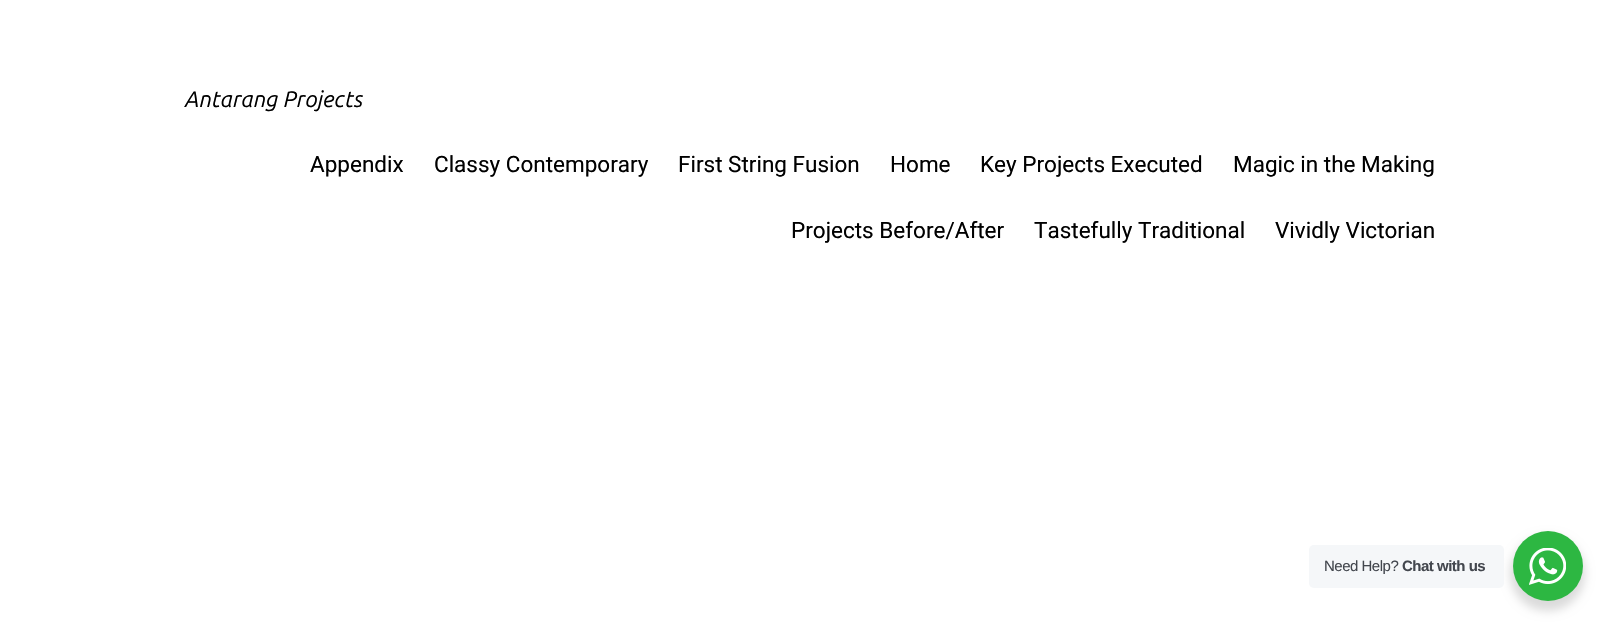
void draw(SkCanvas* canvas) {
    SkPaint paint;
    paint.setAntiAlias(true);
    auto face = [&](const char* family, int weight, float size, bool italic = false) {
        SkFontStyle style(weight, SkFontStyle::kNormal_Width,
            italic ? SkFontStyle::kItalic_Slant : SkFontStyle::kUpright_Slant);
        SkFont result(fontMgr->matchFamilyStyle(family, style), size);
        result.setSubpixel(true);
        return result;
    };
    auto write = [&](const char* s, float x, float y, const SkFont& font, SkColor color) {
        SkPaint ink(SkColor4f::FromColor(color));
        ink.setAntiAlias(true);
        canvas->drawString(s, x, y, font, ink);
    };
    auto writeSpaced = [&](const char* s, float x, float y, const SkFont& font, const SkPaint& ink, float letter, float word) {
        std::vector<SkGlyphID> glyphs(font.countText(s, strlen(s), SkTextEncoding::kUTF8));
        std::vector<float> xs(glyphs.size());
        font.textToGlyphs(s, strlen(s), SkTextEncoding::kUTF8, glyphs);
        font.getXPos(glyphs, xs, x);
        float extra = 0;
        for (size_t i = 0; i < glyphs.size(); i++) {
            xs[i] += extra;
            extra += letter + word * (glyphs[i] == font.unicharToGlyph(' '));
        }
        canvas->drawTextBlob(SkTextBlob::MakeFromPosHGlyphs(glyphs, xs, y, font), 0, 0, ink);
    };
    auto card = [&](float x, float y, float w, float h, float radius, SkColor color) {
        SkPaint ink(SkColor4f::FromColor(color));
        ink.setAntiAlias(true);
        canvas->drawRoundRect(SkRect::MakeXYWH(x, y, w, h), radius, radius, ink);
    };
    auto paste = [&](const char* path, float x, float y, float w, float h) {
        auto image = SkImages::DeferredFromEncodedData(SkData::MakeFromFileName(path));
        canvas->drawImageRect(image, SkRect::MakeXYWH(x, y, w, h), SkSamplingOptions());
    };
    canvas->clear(SK_ColorWHITE);
    auto kFont1 = face("Ubuntu", 400, 22.5f, true);
    write("Antarang Projects", 185, 107, kFont1, SK_ColorBLACK);
    auto kFont2 = face("Roboto", 400, 22.5f);
    write("Appendix", 310, 172, kFont2, SK_ColorBLACK);
    write("Classy Contemporary", 434, 172, kFont2, SK_ColorBLACK);
    write("First String Fusion", 678, 172, kFont2, SK_ColorBLACK);
    write("Home", 890, 172, kFont2, SK_ColorBLACK);
    write("Key Projects Executed", 980, 172, kFont2, SK_ColorBLACK);
    write("Magic in the Making", 1233, 172, kFont2, SK_ColorBLACK);
    write("Projects Before/After", 791, 238, kFont2, SK_ColorBLACK);
    write("Tastefully Traditional", 1034, 238, kFont2, SK_ColorBLACK);
    write("Vividly Victorian", 1275, 238, kFont2, SK_ColorBLACK);
    paint.setColor(SkColorSetARGB(36, 0, 0, 0));
    paint.setMaskFilter(SkMaskFilter::MakeBlur(kNormal_SkBlurStyle, 5));
    canvas->drawRoundRect(SkRect::MakeXYWH(1510, 536, 75, 75), 37.5f, 37.5f, paint);
    paint.setMaskFilter(nullptr);
    card(1309, 545, 195, 43, 5, SkColorSetRGB(245, 247, 249));
    auto kFont3 = face("Liberation Sans", 400, 15);
    paint.setColor(SkColorSetRGB(67, 71, 78));
    writeSpaced("Need Help?", 1324, 571, kFont3, paint, -0.5f, 0);
    auto kFont4 = face("Liberation Sans", 700, 15);
    writeSpaced("Chat with us", 1402, 571, kFont4, paint, -0.5f, 0);
    paint.setColor(SkColorSetRGB(45, 183, 66));
    canvas->drawCircle(1548, 566, 35, paint);
    paste("pic1.png", 1529, 548, 37, 37);
}
